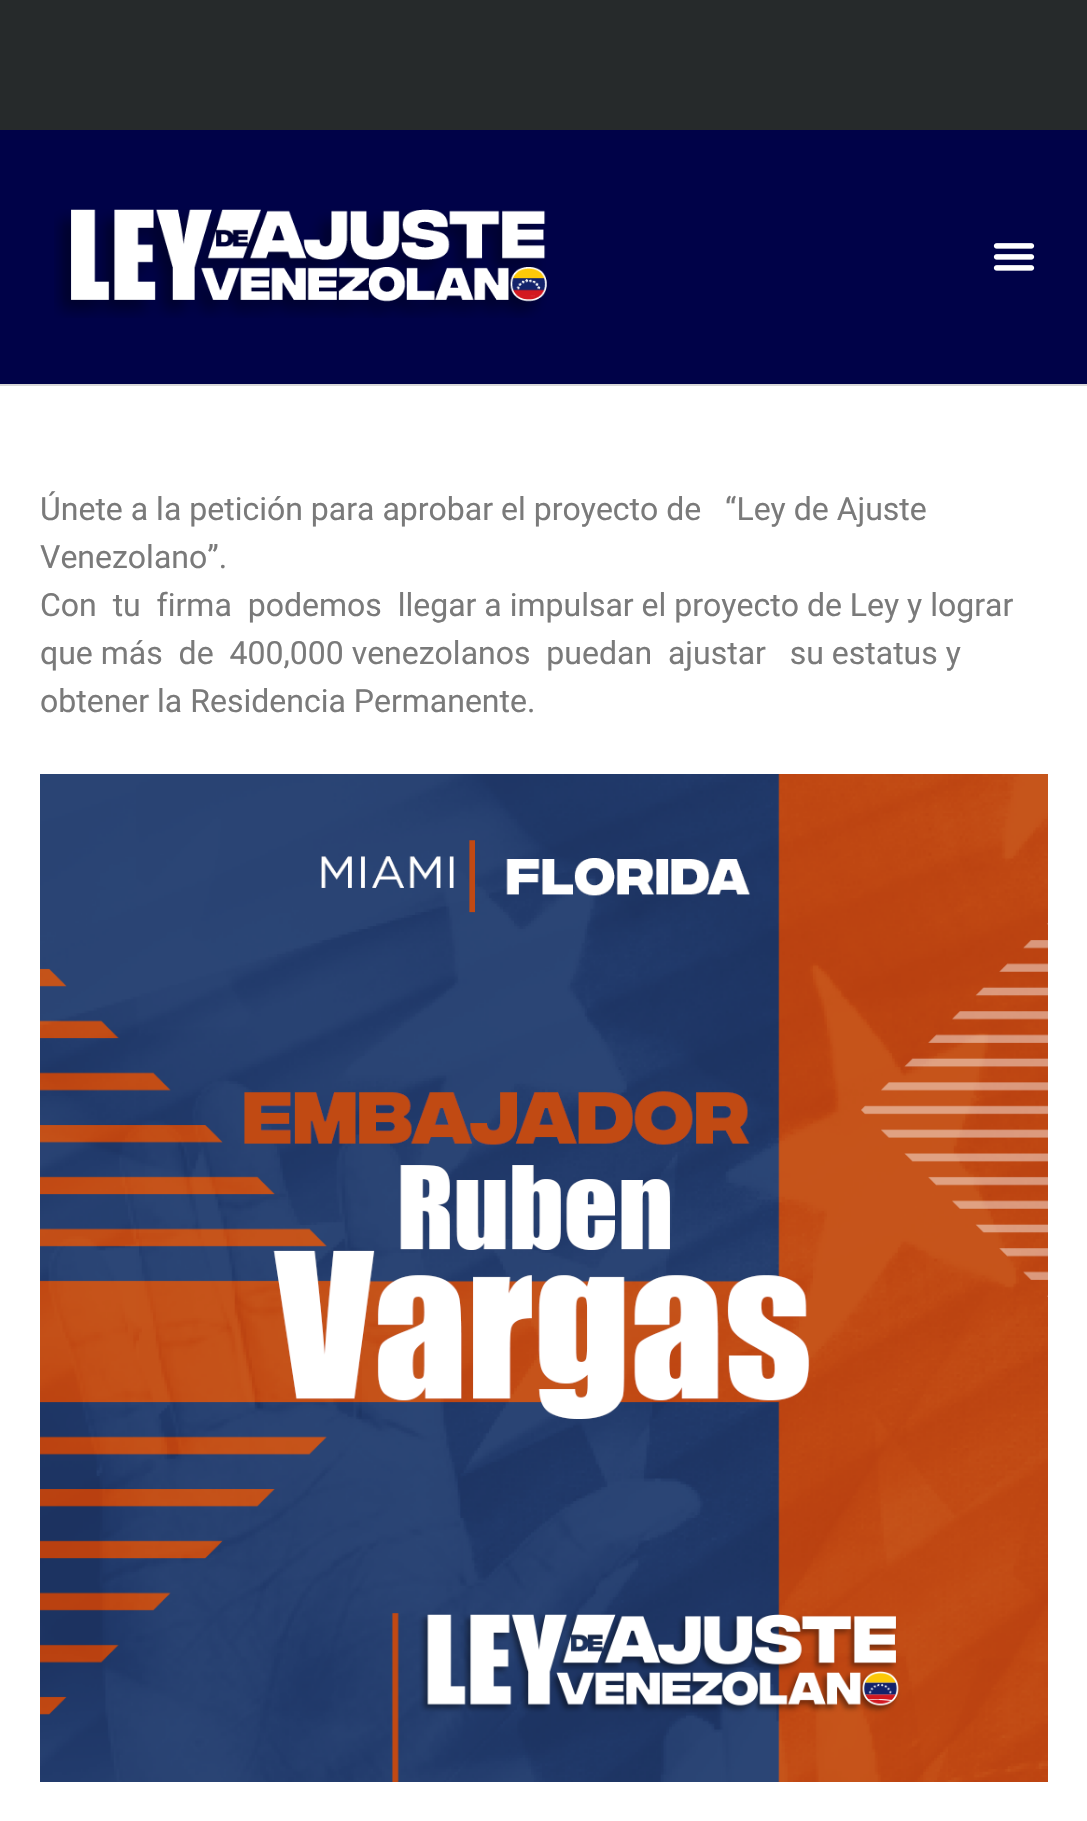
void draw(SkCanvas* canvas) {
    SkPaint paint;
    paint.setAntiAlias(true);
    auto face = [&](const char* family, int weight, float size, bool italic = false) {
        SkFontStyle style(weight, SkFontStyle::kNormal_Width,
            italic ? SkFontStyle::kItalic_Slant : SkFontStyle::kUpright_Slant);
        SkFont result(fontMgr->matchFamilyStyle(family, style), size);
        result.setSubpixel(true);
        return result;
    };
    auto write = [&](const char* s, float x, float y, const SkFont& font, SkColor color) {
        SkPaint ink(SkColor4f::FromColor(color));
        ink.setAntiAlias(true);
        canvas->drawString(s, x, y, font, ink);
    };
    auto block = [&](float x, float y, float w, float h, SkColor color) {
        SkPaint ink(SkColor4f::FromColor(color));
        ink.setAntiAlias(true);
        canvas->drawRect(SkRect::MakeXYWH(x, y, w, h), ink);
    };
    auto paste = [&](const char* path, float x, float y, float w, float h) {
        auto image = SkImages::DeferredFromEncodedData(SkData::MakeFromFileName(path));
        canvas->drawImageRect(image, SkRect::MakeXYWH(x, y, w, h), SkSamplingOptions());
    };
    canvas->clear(SK_ColorWHITE);
    block(0, 0, 1087, 130, SkColorSetRGB(38, 42, 43));
    block(0, 130, 1087, 254, SkColorSetRGB(0, 2, 72));
    block(0, 384, 1087, 2, SkColorSetRGB(216, 216, 216));
    paste("pic1.png", 54, 209, 493, 109);
    paste("pic2.png", 993, 243, 42, 28);
    auto kFont1 = face("Roboto", 400, 32);
    write("Únete a la petición para aprobar el proyecto de   “Ley de Ajuste", 40, 520, kFont1, SkColorSetRGB(122, 122, 122));
    write("Venezolano”.", 40, 568, kFont1, SkColorSetRGB(122, 122, 122));
    write("Con  tu  firma  podemos  llegar a impulsar el proyecto de Ley y lograr", 40, 616, kFont1, SkColorSetRGB(122, 122, 122));
    write("que más  de  400,000 venezolanos  puedan  ajustar   su estatus y", 40, 664, kFont1, SkColorSetRGB(122, 122, 122));
    write("obtener la Residencia Permanente.", 40, 712, kFont1, SkColorSetRGB(122, 122, 122));
    paste("pic3.png", 40, 774, 1008, 1008);
}
